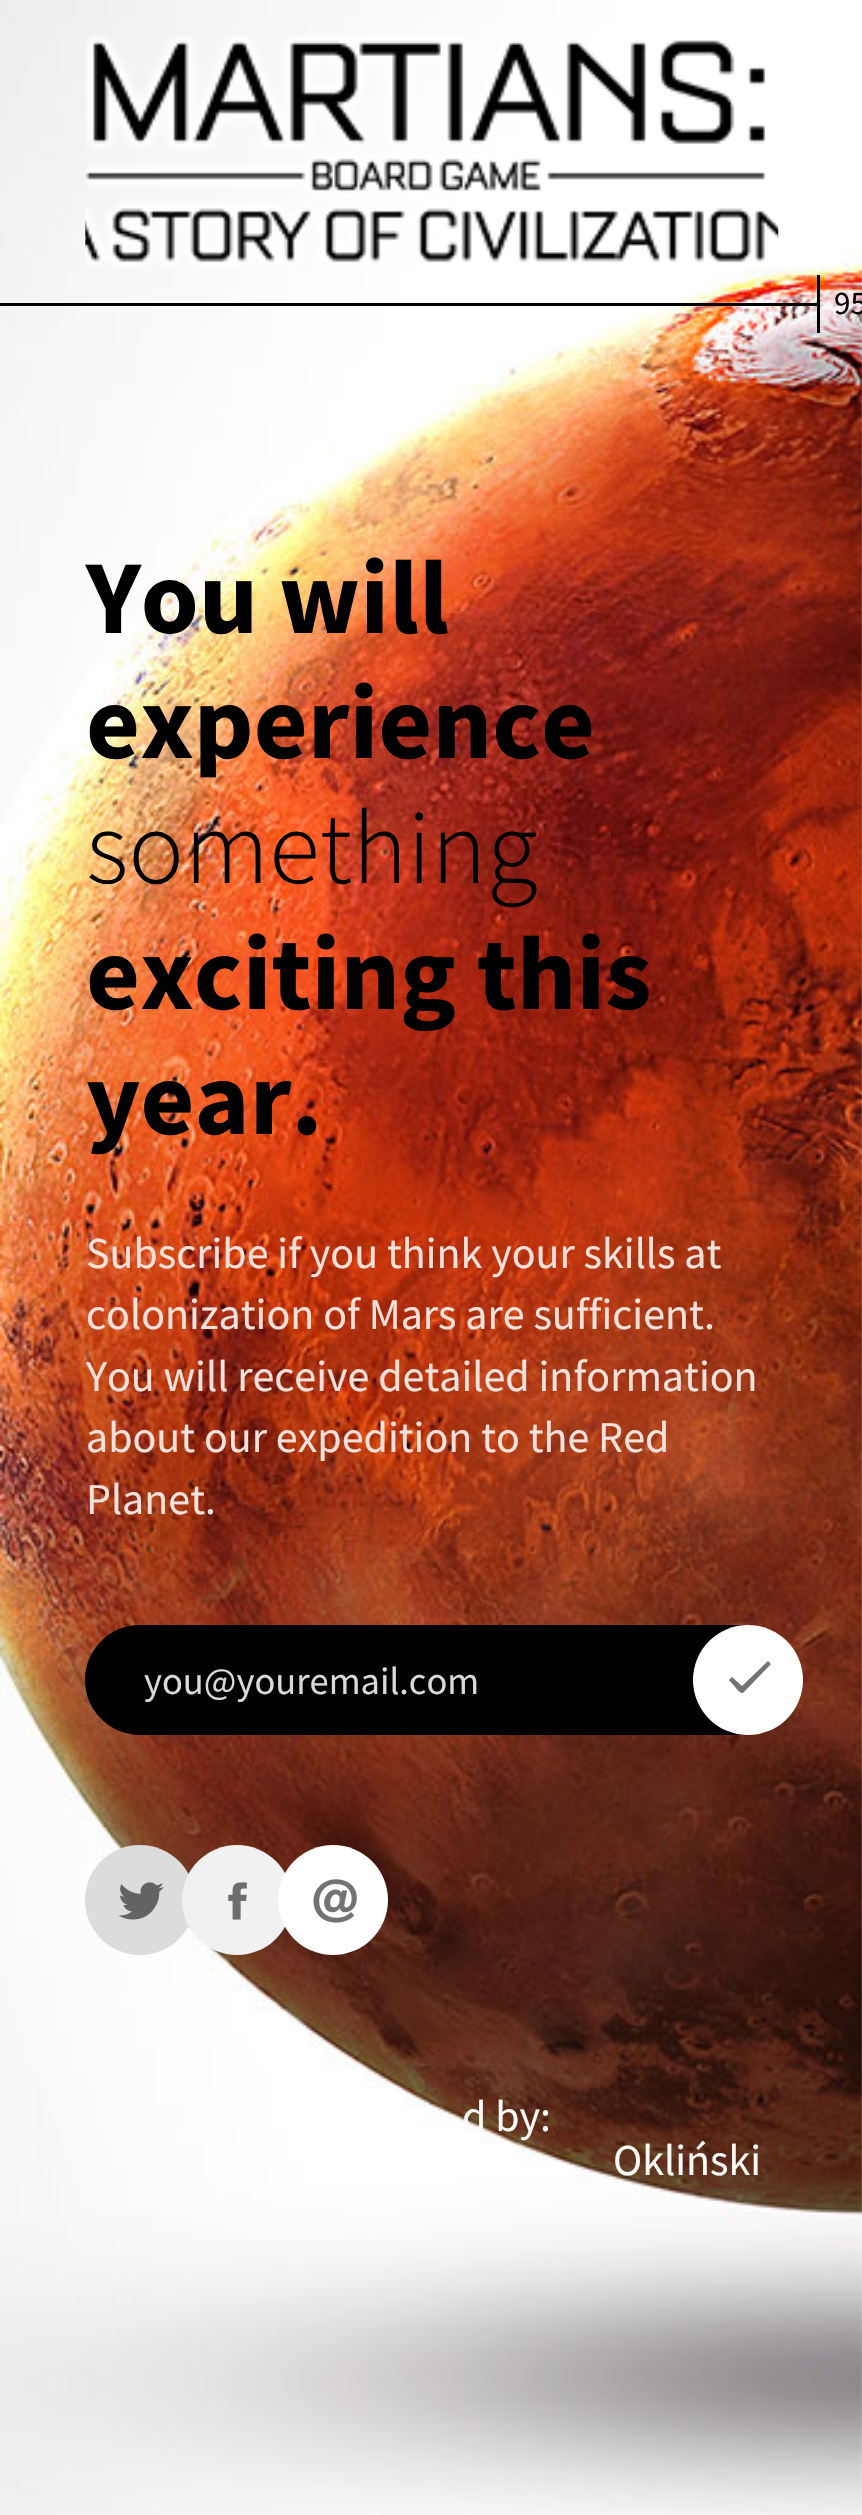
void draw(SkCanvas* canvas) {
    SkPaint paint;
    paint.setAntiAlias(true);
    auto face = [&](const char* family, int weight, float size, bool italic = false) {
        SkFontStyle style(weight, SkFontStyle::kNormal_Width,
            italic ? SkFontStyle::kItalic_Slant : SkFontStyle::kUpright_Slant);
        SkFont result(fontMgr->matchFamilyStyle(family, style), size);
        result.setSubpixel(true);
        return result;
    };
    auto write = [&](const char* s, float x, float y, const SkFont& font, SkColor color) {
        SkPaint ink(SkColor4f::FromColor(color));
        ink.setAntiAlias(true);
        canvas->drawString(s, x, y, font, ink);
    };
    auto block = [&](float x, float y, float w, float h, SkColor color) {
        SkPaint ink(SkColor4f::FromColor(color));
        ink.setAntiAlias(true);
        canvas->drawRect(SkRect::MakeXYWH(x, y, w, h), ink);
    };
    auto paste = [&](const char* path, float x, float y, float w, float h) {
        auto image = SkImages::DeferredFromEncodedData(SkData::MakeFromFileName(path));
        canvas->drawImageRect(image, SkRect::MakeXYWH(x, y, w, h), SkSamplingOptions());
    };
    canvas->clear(SK_ColorWHITE);
    paste("pic1.png", 0, 0, 862, 2515);
    paint.setStyle(SkPaint::kStroke_Style);
    paint.setStrokeWidth(2.8f);
    paint.setColor(SkColorSetARGB(64, 255, 255, 255));
    paint.setPathEffect(SkDashPathEffect::Make({{8.25f, 5.55f}}, 0));
    canvas->drawPath(SkPathBuilder().moveTo(0, 304).lineTo(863.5f, 304).detach(), paint);
    paint.setPathEffect(nullptr);
    paste("pic2.png", 85, 35, 694, 233);
    block(0, 303, 820, 3, SK_ColorBLACK);
    block(817, 275, 3, 58, SK_ColorBLACK);
    auto kFont1 = face("Source Sans Pro", 400, 33);
    write("95", 834, 314, kFont1, SK_ColorBLACK);
    auto kFont2 = face("Source Sans Pro", 700, 104.5f);
    write("You will", 86, 633, kFont2, SK_ColorBLACK);
    write("experience", 86, 758, kFont2, SK_ColorBLACK);
    auto kFont3 = face("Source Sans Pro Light", 300, 104.5f);
    write("something", 86, 883, kFont3, SK_ColorBLACK);
    write("exciting this", 86, 1009, kFont2, SK_ColorBLACK);
    write("year.", 86, 1134, kFont2, SK_ColorBLACK);
    auto kFont4 = face("Source Sans Pro", 400, 44);
    write("Subscribe if you think your skills at", 86, 1268, kFont4, SkColorSetRGB(245, 225, 219));
    write("colonization of Mars are sufficient.", 86, 1329, kFont4, SkColorSetRGB(245, 225, 219));
    write("You will receive detailed information", 86, 1391, kFont4, SkColorSetRGB(245, 225, 219));
    write("about our expedition to the Red", 86, 1452, kFont4, SkColorSetRGB(245, 225, 219));
    write("Planet.", 86, 1514, kFont4, SkColorSetRGB(245, 225, 219));
    paint.setStyle(SkPaint::kFill_Style);
    paint.setColor(SK_ColorBLACK);
    canvas->drawPath(SkPathBuilder().moveTo(140, 1626.5f).lineTo(749.5f, 1626.5f).lineTo(749.5f, 1733.5f).lineTo(140, 1733.5f).cubicTo(110.5f, 1733.5f, 86.5f, 1709.5f, 86.5f, 1680).cubicTo(86.5f, 1650.5f, 110.5f, 1626.5f, 140, 1626.5f).close().detach(), paint);
    paint.setStyle(SkPaint::kStroke_Style);
    paint.setStrokeWidth(3);
    canvas->drawPath(SkPathBuilder().moveTo(140, 1626.5f).lineTo(749.5f, 1626.5f).lineTo(749.5f, 1733.5f).lineTo(140, 1733.5f).cubicTo(110.5f, 1733.5f, 86.5f, 1709.5f, 86.5f, 1680).cubicTo(86.5f, 1650.5f, 110.5f, 1626.5f, 140, 1626.5f).close().detach(), paint);
    auto kFont5 = face("Source Sans Pro", 400, 38.5f);
    write("you@youremail.com", 144, 1694, kFont5, SkColorSetRGB(217, 217, 217));
    paint.setStyle(SkPaint::kFill_Style);
    paint.setColor(SK_ColorWHITE);
    canvas->drawCircle(748, 1680, 55, paint);
    paint.setColor(SkColorSetRGB(115, 115, 115));
    canvas->drawPath(SkPathBuilder().moveTo(744, 1692).cubicTo(741, 1695, 738, 1690, 736, 1688).lineTo(729, 1680).lineTo(732, 1677).lineTo(742, 1686).lineTo(768, 1661).lineTo(771, 1664).close().detach(), paint);
    paint.setColor(SkColorSetRGB(220, 220, 220));
    canvas->drawCircle(140, 1900, 55, paint);
    paste("pic3.png", 118, 1882, 46, 38);
    paint.setColor(SkColorSetRGB(241, 241, 241));
    canvas->drawCircle(237, 1900, 55, paint);
    paste("pic4.png", 228, 1882, 19, 38);
    paint.setColor(SK_ColorWHITE);
    canvas->drawCircle(333, 1900, 55, paint);
    paste("pic5.png", 313, 1879, 44, 44);
    write("d by:", 462, 2131, kFont4, SkColorSetRGB(251, 250, 249));
    write("Okliński", 613, 2175, kFont4, SkColorSetRGB(251, 250, 249));
}
